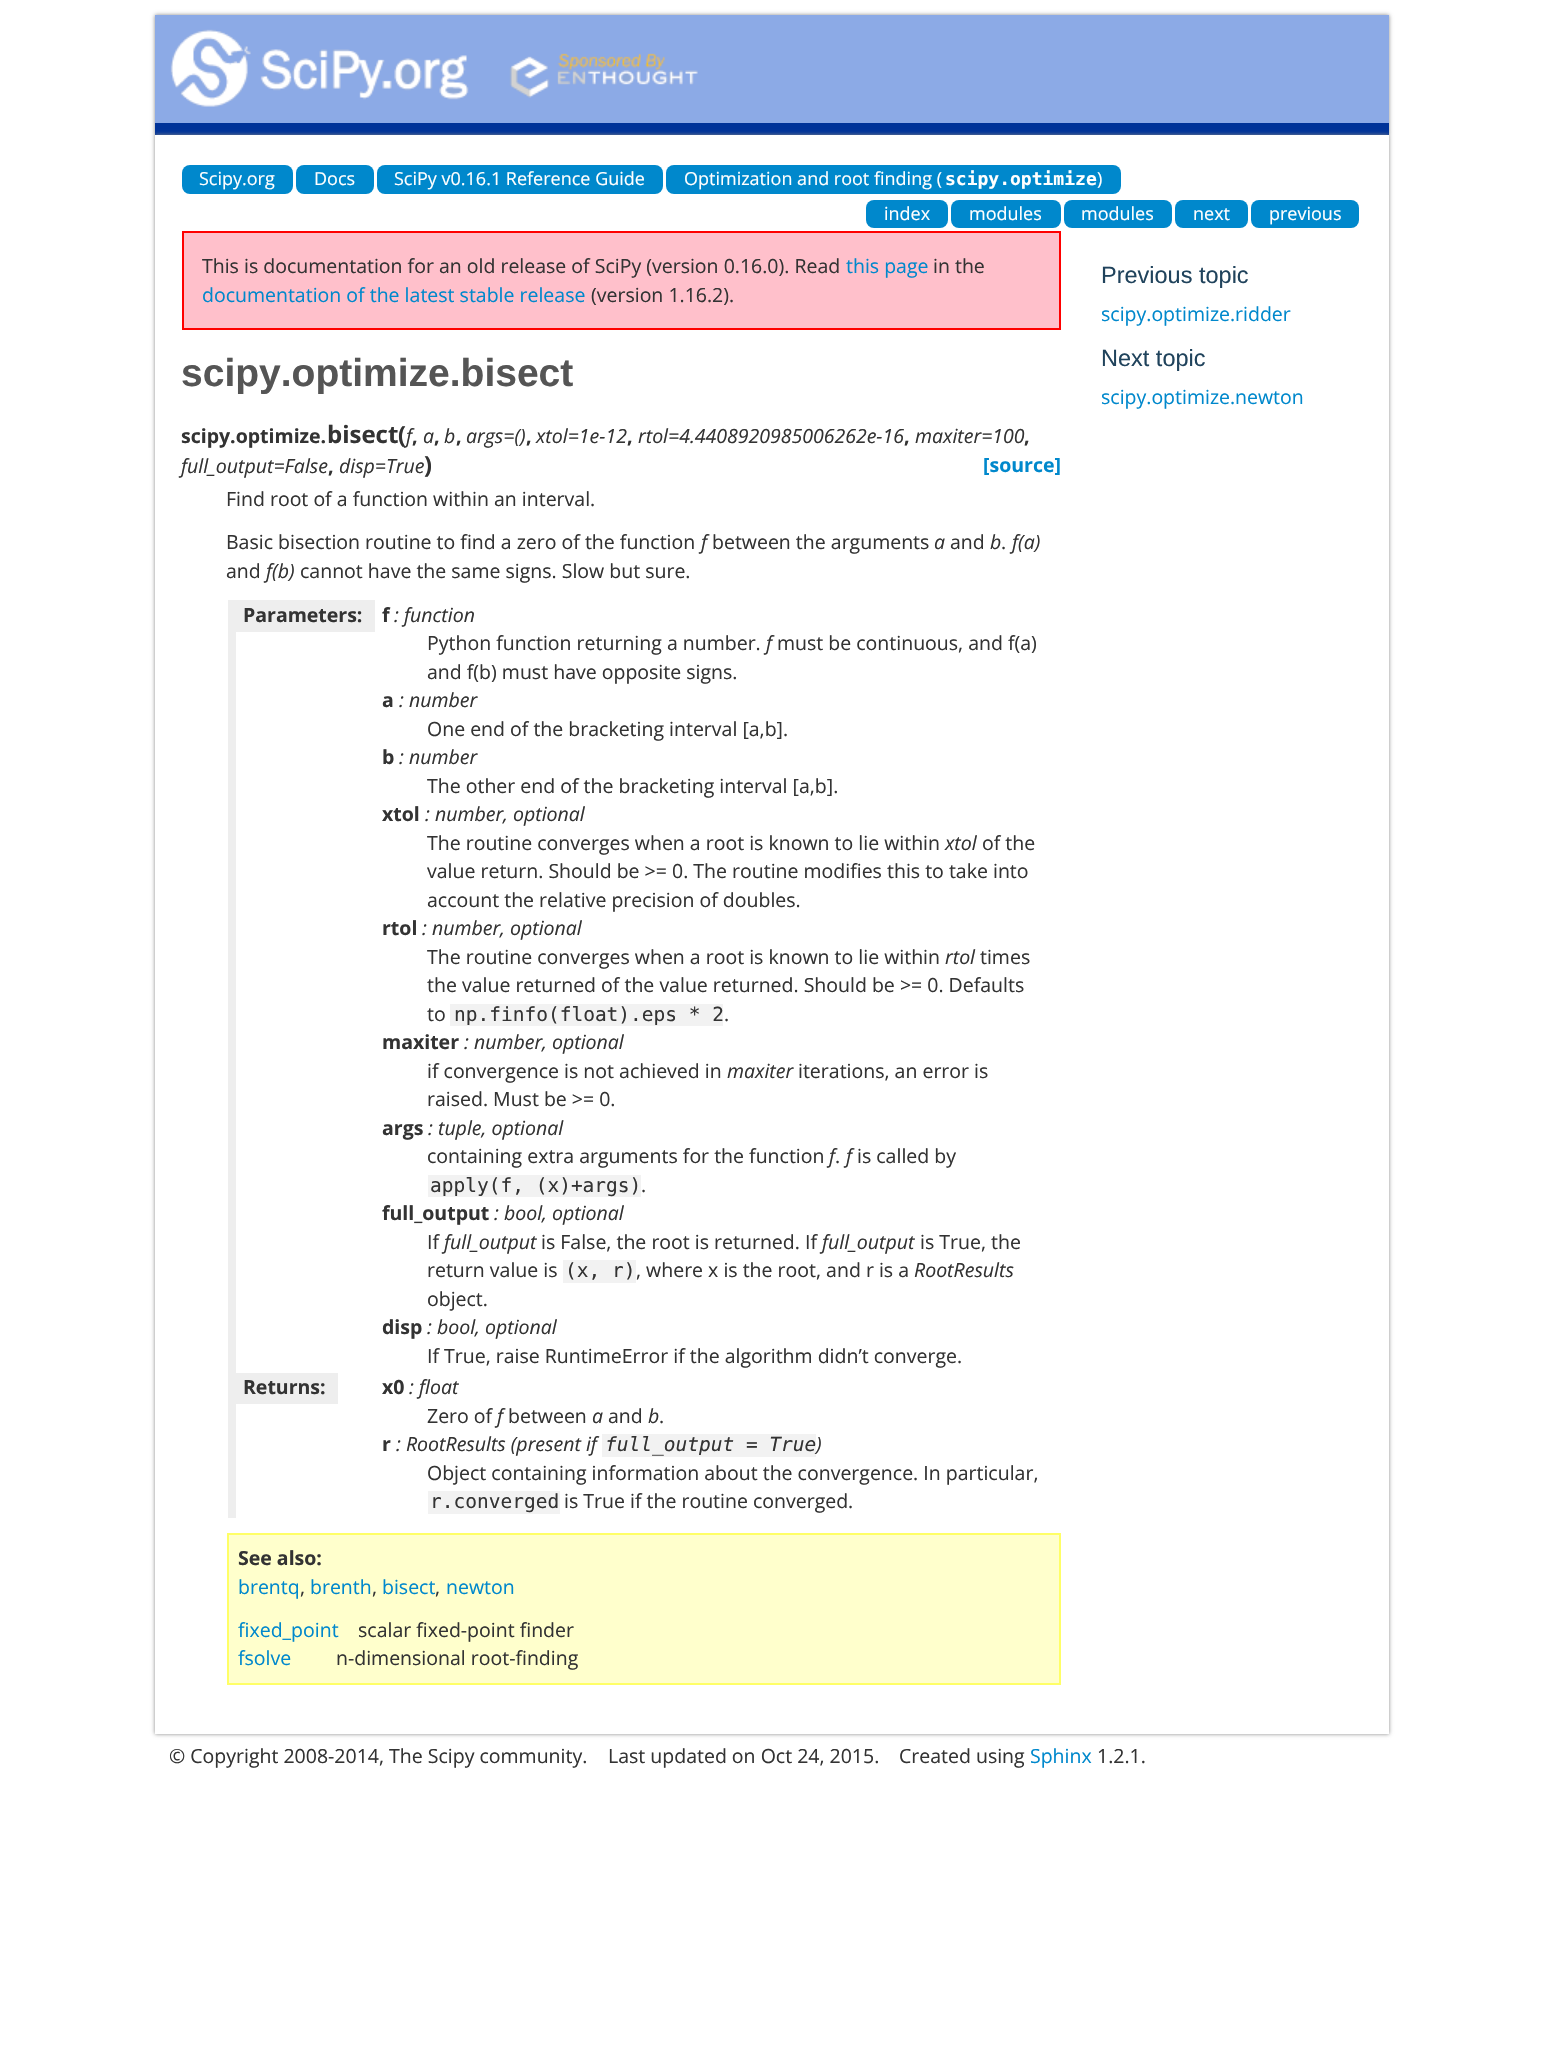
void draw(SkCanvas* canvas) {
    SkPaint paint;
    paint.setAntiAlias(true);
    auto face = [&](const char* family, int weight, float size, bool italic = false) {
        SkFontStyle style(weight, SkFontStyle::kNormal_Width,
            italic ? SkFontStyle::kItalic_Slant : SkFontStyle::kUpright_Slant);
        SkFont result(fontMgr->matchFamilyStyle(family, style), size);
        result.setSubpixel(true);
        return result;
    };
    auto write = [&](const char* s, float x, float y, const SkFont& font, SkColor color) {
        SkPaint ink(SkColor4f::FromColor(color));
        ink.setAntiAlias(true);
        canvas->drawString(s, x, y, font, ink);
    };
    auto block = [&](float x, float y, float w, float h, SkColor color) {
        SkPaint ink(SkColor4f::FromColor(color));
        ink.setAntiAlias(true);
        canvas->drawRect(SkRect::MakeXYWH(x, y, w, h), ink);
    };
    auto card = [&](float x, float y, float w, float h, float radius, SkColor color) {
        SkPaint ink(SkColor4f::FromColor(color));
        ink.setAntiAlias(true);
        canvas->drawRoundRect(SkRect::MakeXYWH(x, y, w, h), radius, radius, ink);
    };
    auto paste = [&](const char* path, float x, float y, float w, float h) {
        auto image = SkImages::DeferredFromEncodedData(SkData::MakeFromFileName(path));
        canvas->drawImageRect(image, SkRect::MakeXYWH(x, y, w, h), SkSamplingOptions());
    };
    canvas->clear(SK_ColorWHITE);
    paint.setColor(SkColorSetRGB(136, 136, 136));
    paint.setMaskFilter(SkMaskFilter::MakeBlur(kNormal_SkBlurStyle, 2));
    canvas->drawRect(SkRect::MakeXYWH(155, 15, 1234, 120), paint);
    paint.setMaskFilter(nullptr);
    block(155, 15, 1234, 108, SkColorSetRGB(140, 170, 230));
    block(155, 123, 1234, 12, SkColorSetRGB(0, 51, 153));
    paste("pic1.png", 170, 29, 528, 78);
    paint.setMaskFilter(SkMaskFilter::MakeBlur(kNormal_SkBlurStyle, 2));
    canvas->drawRect(SkRect::MakeXYWH(155, 135, 1234, 1599), paint);
    paint.setMaskFilter(nullptr);
    block(155, 135, 1234, 1599, SK_ColorWHITE);
    card(182, 165, 111, 29, 8, SkColorSetRGB(0, 136, 204));
    auto kFont1 = face("Open Sans", 400, 18);
    write("Scipy.org", 199, 185, kFont1, SK_ColorWHITE);
    card(296, 165, 78, 29, 8, SkColorSetRGB(0, 136, 204));
    write("Docs", 314, 185, kFont1, SK_ColorWHITE);
    card(377, 165, 286, 29, 8, SkColorSetRGB(0, 136, 204));
    write("SciPy v0.16.1 Reference Guide", 394, 185, kFont1, SK_ColorWHITE);
    card(666, 165, 455, 29, 8, SkColorSetRGB(0, 136, 204));
    write("Optimization and root finding (", 684, 185, kFont1, SK_ColorWHITE);
    auto kFont2 = face("DejaVu Sans Mono", 700, 18);
    write("scipy.optimize", 945, 185, kFont2, SK_ColorWHITE);
    write(")", 1097, 185, kFont1, SK_ColorWHITE);
    card(866, 200, 82, 28, 8, SkColorSetRGB(0, 136, 204));
    write("index", 884, 220, kFont1, SK_ColorWHITE);
    card(951, 200, 110, 28, 8, SkColorSetRGB(0, 136, 204));
    write("modules", 969, 220, kFont1, SK_ColorWHITE);
    card(1064, 200, 108, 28, 8, SkColorSetRGB(0, 136, 204));
    write("modules", 1081, 220, kFont1, SK_ColorWHITE);
    card(1175, 200, 73, 28, 8, SkColorSetRGB(0, 136, 204));
    write("next", 1193, 220, kFont1, SK_ColorWHITE);
    card(1251, 200, 108, 28, 8, SkColorSetRGB(0, 136, 204));
    write("previous", 1269, 220, kFont1, SK_ColorWHITE);
    paint.setColor(SkColorSetRGB(255, 192, 203));
    canvas->drawRect(SkRect::MakeXYWH(183, 232, 877, 97), paint);
    paint.setStyle(SkPaint::kStroke_Style);
    paint.setStrokeWidth(2);
    paint.setColor(SkColorSetRGB(255, 0, 0));
    canvas->drawRect(SkRect::MakeXYWH(183, 232, 877, 97), paint);
    auto kFont3 = face("Open Sans", 400, 19.5f);
    write("This is documentation for an old release of SciPy (version 0.16.0). Read", 202, 273, kFont3, SkColorSetRGB(51, 51, 51));
    write("this page", 846, 273, kFont3, SkColorSetRGB(0, 136, 204));
    write("in the", 933, 273, kFont3, SkColorSetRGB(51, 51, 51));
    write("documentation of the latest stable release", 202, 302, kFont3, SkColorSetRGB(0, 136, 204));
    write("(version 1.16.2).", 591, 302, kFont3, SkColorSetRGB(51, 51, 51));
    auto kFont4 = face("Liberation Sans", 700, 39);
    write("scipy.optimize.bisect", 181, 386, kFont4, SkColorSetRGB(85, 85, 85));
    auto kFont5 = face("Open Sans", 700, 19.5f);
    write("scipy.optimize.", 181, 443, kFont5, SkColorSetRGB(51, 51, 51));
    auto kFont6 = face("Open Sans", 700, 24);
    write("bisect", 327, 443, kFont6, SkColorSetRGB(51, 51, 51));
    auto kFont7 = face("Open Sans", 700, 23.5f);
    write("(", 398, 443, kFont7, SkColorSetRGB(51, 51, 51));
    auto kFont8 = face("Open Sans", 400, 19.5f, true);
    write("f", 406, 443, kFont8, SkColorSetRGB(51, 51, 51));
    write("a", 423, 443, kFont8, SkColorSetRGB(51, 51, 51));
    write("b", 444, 443, kFont8, SkColorSetRGB(51, 51, 51));
    write("args=()", 466, 443, kFont8, SkColorSetRGB(51, 51, 51));
    write("xtol=1e-12", 536, 443, kFont8, SkColorSetRGB(51, 51, 51));
    write("rtol=4.4408920985006262e-16", 638, 443, kFont8, SkColorSetRGB(51, 51, 51));
    write("maxiter=100", 915, 443, kFont8, SkColorSetRGB(51, 51, 51));
    write(",", 412, 443, kFont5, SkColorSetRGB(51, 51, 51));
    write(",", 434, 443, kFont5, SkColorSetRGB(51, 51, 51));
    write(",", 456, 443, kFont5, SkColorSetRGB(51, 51, 51));
    write(",", 526, 443, kFont5, SkColorSetRGB(51, 51, 51));
    write(",", 627, 443, kFont5, SkColorSetRGB(51, 51, 51));
    write(",", 904, 443, kFont5, SkColorSetRGB(51, 51, 51));
    write(",", 1024, 443, kFont5, SkColorSetRGB(51, 51, 51));
    write("full_output=False", 181, 473, kFont8, SkColorSetRGB(51, 51, 51));
    write(",", 328, 473, kFont5, SkColorSetRGB(51, 51, 51));
    write("disp=True", 339, 473, kFont8, SkColorSetRGB(51, 51, 51));
    write(")", 424, 473, kFont7, SkColorSetRGB(51, 51, 51));
    write("[source]", 983, 472, kFont5, SkColorSetRGB(0, 136, 204));
    write("Find root of a function within an interval.", 226, 506, kFont3, SkColorSetRGB(51, 51, 51));
    write("Basic bisection routine to find a zero of the function", 226, 549, kFont3, SkColorSetRGB(51, 51, 51));
    write("f", 701, 549, kFont8, SkColorSetRGB(51, 51, 51));
    write("between the arguments", 712, 549, kFont3, SkColorSetRGB(51, 51, 51));
    write("a", 934, 549, kFont8, SkColorSetRGB(51, 51, 51));
    write("and", 950, 549, kFont3, SkColorSetRGB(51, 51, 51));
    write("b", 990, 549, kFont8, SkColorSetRGB(51, 51, 51));
    write(".", 1001, 549, kFont3, SkColorSetRGB(51, 51, 51));
    write("f(a)", 1012, 549, kFont8, SkColorSetRGB(51, 51, 51));
    write("and", 226, 578, kFont3, SkColorSetRGB(51, 51, 51));
    write("f(b)", 266, 578, kFont8, SkColorSetRGB(51, 51, 51));
    write("cannot have the same signs. Slow but sure.", 300, 578, kFont3, SkColorSetRGB(51, 51, 51));
    block(228, 600, 8, 918, SkColorSetRGB(238, 238, 238));
    block(236, 600, 139, 32, SkColorSetRGB(238, 238, 238));
    write("Parameters:", 243, 622, kFont5, SkColorSetRGB(51, 51, 51));
    write("f", 382, 622, kFont5, SkColorSetRGB(51, 51, 51));
    write(": function", 394, 622, kFont8, SkColorSetRGB(51, 51, 51));
    write("Python function returning a number.", 427, 650, kFont3, SkColorSetRGB(51, 51, 51));
    write("f", 766, 650, kFont8, SkColorSetRGB(51, 51, 51));
    write("must be continuous, and f(a)", 777, 650, kFont3, SkColorSetRGB(51, 51, 51));
    write("and f(b) must have opposite signs.", 427, 679, kFont3, SkColorSetRGB(51, 51, 51));
    write("a", 382, 707, kFont5, SkColorSetRGB(51, 51, 51));
    write(": number", 399, 707, kFont8, SkColorSetRGB(51, 51, 51));
    write("One end of the bracketing interval [a,b].", 427, 736, kFont3, SkColorSetRGB(51, 51, 51));
    write("b", 382, 764, kFont5, SkColorSetRGB(51, 51, 51));
    write(": number", 399, 764, kFont8, SkColorSetRGB(51, 51, 51));
    write("The other end of the bracketing interval [a,b].", 427, 793, kFont3, SkColorSetRGB(51, 51, 51));
    write("xtol", 382, 821, kFont5, SkColorSetRGB(51, 51, 51));
    write(": number, optional", 425, 821, kFont8, SkColorSetRGB(51, 51, 51));
    write("The routine converges when a root is known to lie within", 427, 850, kFont3, SkColorSetRGB(51, 51, 51));
    write("xtol", 945, 850, kFont8, SkColorSetRGB(51, 51, 51));
    write("of the", 982, 850, kFont3, SkColorSetRGB(51, 51, 51));
    write("value return. Should be >= 0. The routine modifies this to take into", 427, 878, kFont3, SkColorSetRGB(51, 51, 51));
    write("account the relative precision of doubles.", 427, 907, kFont3, SkColorSetRGB(51, 51, 51));
    write("rtol", 382, 935, kFont5, SkColorSetRGB(51, 51, 51));
    write(": number, optional", 422, 935, kFont8, SkColorSetRGB(51, 51, 51));
    write("The routine converges when a root is known to lie within", 427, 964, kFont3, SkColorSetRGB(51, 51, 51));
    write("rtol", 945, 964, kFont8, SkColorSetRGB(51, 51, 51));
    write("times", 980, 964, kFont3, SkColorSetRGB(51, 51, 51));
    write("the value returned of the value returned. Should be >= 0. Defaults", 427, 992, kFont3, SkColorSetRGB(51, 51, 51));
    write("to", 427, 1021, kFont3, SkColorSetRGB(51, 51, 51));
    block(450, 1004, 273, 22, SkColorSetRGB(242, 242, 242));
    auto kFont9 = face("DejaVu Sans Mono", 400, 19.5f);
    write("np.finfo(float).eps * 2", 454, 1021, kFont9, SkColorSetRGB(51, 51, 51));
    write(".", 724, 1021, kFont3, SkColorSetRGB(51, 51, 51));
    write("maxiter", 382, 1049, kFont5, SkColorSetRGB(51, 51, 51));
    write(": number, optional", 464, 1049, kFont8, SkColorSetRGB(51, 51, 51));
    write("if convergence is not achieved in", 427, 1078, kFont3, SkColorSetRGB(51, 51, 51));
    write("maxiter", 727, 1078, kFont8, SkColorSetRGB(51, 51, 51));
    write("iterations, an error is", 798, 1078, kFont3, SkColorSetRGB(51, 51, 51));
    write("raised. Must be >= 0.", 427, 1106, kFont3, SkColorSetRGB(51, 51, 51));
    write("args", 382, 1135, kFont5, SkColorSetRGB(51, 51, 51));
    write(": tuple, optional", 428, 1135, kFont8, SkColorSetRGB(51, 51, 51));
    write("containing extra arguments for the function", 427, 1163, kFont3, SkColorSetRGB(51, 51, 51));
    write("f", 829, 1163, kFont8, SkColorSetRGB(51, 51, 51));
    write("f", 846, 1163, kFont8, SkColorSetRGB(51, 51, 51));
    write("is called by", 857, 1163, kFont3, SkColorSetRGB(51, 51, 51));
    write(".", 835, 1163, kFont3, SkColorSetRGB(51, 51, 51));
    block(428, 1175, 213, 22, SkColorSetRGB(242, 242, 242));
    write("apply(f, (x)+args)", 430, 1192, kFont9, SkColorSetRGB(51, 51, 51));
    write(".", 641, 1192, kFont3, SkColorSetRGB(51, 51, 51));
    write("full_output", 382, 1220, kFont5, SkColorSetRGB(51, 51, 51));
    write(": bool, optional", 494, 1220, kFont8, SkColorSetRGB(51, 51, 51));
    write("If", 427, 1249, kFont3, SkColorSetRGB(51, 51, 51));
    write("full_output", 444, 1249, kFont8, SkColorSetRGB(51, 51, 51));
    write("is False, the root is returned. If", 541, 1249, kFont3, SkColorSetRGB(51, 51, 51));
    write("full_output", 822, 1249, kFont8, SkColorSetRGB(51, 51, 51));
    write("is True, the", 920, 1249, kFont3, SkColorSetRGB(51, 51, 51));
    write("return value is", 427, 1277, kFont3, SkColorSetRGB(51, 51, 51));
    block(563, 1260, 73, 23, SkColorSetRGB(242, 242, 242));
    write("(x, r)", 565, 1277, kFont9, SkColorSetRGB(51, 51, 51));
    write(", where x is the root, and r is a", 636, 1277, kFont3, SkColorSetRGB(51, 51, 51));
    write("RootResults", 914, 1277, kFont8, SkColorSetRGB(51, 51, 51));
    write("object.", 427, 1306, kFont3, SkColorSetRGB(51, 51, 51));
    write("disp", 382, 1334, kFont5, SkColorSetRGB(51, 51, 51));
    write(": bool, optional", 427, 1334, kFont8, SkColorSetRGB(51, 51, 51));
    write("If True, raise RuntimeError if the algorithm didn’t converge.", 427, 1363, kFont3, SkColorSetRGB(51, 51, 51));
    block(236, 1373, 102, 31, SkColorSetRGB(238, 238, 238));
    write("Returns:", 243, 1394, kFont5, SkColorSetRGB(51, 51, 51));
    write("x0", 382, 1394, kFont5, SkColorSetRGB(51, 51, 51));
    write(": float", 409, 1394, kFont8, SkColorSetRGB(51, 51, 51));
    write("Zero of", 427, 1423, kFont3, SkColorSetRGB(51, 51, 51));
    write("f", 497, 1423, kFont8, SkColorSetRGB(51, 51, 51));
    write("between", 508, 1423, kFont3, SkColorSetRGB(51, 51, 51));
    write("a", 592, 1423, kFont8, SkColorSetRGB(51, 51, 51));
    write("and", 608, 1423, kFont3, SkColorSetRGB(51, 51, 51));
    write("b", 648, 1423, kFont8, SkColorSetRGB(51, 51, 51));
    write(".", 659, 1423, kFont3, SkColorSetRGB(51, 51, 51));
    write("r", 382, 1451, kFont5, SkColorSetRGB(51, 51, 51));
    write(": RootResults (present if", 396, 1451, kFont8, SkColorSetRGB(51, 51, 51));
    block(602, 1434, 214, 23, SkColorSetRGB(242, 242, 242));
    auto kFont10 = face("DejaVu Sans Mono", 400, 19.5f, true);
    write("full_output = True", 605, 1451, kFont10, SkColorSetRGB(51, 51, 51));
    write(")", 816, 1451, kFont8, SkColorSetRGB(51, 51, 51));
    write("Object containing information about the convergence. In particular,", 427, 1480, kFont3, SkColorSetRGB(51, 51, 51));
    block(428, 1491, 132, 23, SkColorSetRGB(242, 242, 242));
    write("r.converged", 430, 1508, kFont9, SkColorSetRGB(51, 51, 51));
    write("is True if the routine converged.", 564, 1508, kFont3, SkColorSetRGB(51, 51, 51));
    paint.setStyle(SkPaint::kFill_Style);
    paint.setColor(SkColorSetRGB(255, 255, 204));
    canvas->drawRect(SkRect::MakeXYWH(228, 1534, 832, 150), paint);
    paint.setStyle(SkPaint::kStroke_Style);
    paint.setColor(SkColorSetRGB(255, 255, 102));
    canvas->drawRect(SkRect::MakeXYWH(228, 1534, 832, 150), paint);
    write("See also:", 238, 1565, kFont5, SkColorSetRGB(51, 51, 51));
    write("brentq", 238, 1594, kFont3, SkColorSetRGB(0, 136, 204));
    write(",", 300, 1594, kFont3, SkColorSetRGB(51, 51, 51));
    write("brenth", 310, 1594, kFont3, SkColorSetRGB(0, 136, 204));
    write(",", 372, 1594, kFont3, SkColorSetRGB(51, 51, 51));
    write("bisect", 382, 1594, kFont3, SkColorSetRGB(0, 136, 204));
    write(",", 435, 1594, kFont3, SkColorSetRGB(51, 51, 51));
    write("newton", 446, 1594, kFont3, SkColorSetRGB(0, 136, 204));
    write("fixed_point", 238, 1637, kFont3, SkColorSetRGB(0, 136, 204));
    write("scalar fixed-point finder", 358, 1637, kFont3, SkColorSetRGB(51, 51, 51));
    write("fsolve", 238, 1665, kFont3, SkColorSetRGB(0, 136, 204));
    write("n-dimensional root-finding", 336, 1665, kFont3, SkColorSetRGB(51, 51, 51));
    auto kFont11 = face("Liberation Sans", 400, 23.5f);
    write("Previous topic", 1101, 283, kFont11, SkColorSetRGB(32, 67, 92));
    write("scipy.optimize.ridder", 1101, 321, kFont3, SkColorSetRGB(0, 136, 204));
    write("Next topic", 1101, 366, kFont11, SkColorSetRGB(32, 67, 92));
    write("scipy.optimize.newton", 1101, 404, kFont3, SkColorSetRGB(0, 136, 204));
    write("© Copyright 2008-2014, The Scipy community.", 169, 1763, kFont3, SkColorSetRGB(51, 51, 51));
    write("Last updated on Oct 24, 2015.", 608, 1763, kFont3, SkColorSetRGB(51, 51, 51));
    write("Created using", 899, 1763, kFont3, SkColorSetRGB(51, 51, 51));
    write("Sphinx", 1030, 1763, kFont3, SkColorSetRGB(0, 136, 204));
    write("1.2.1.", 1097, 1763, kFont3, SkColorSetRGB(51, 51, 51));
}
